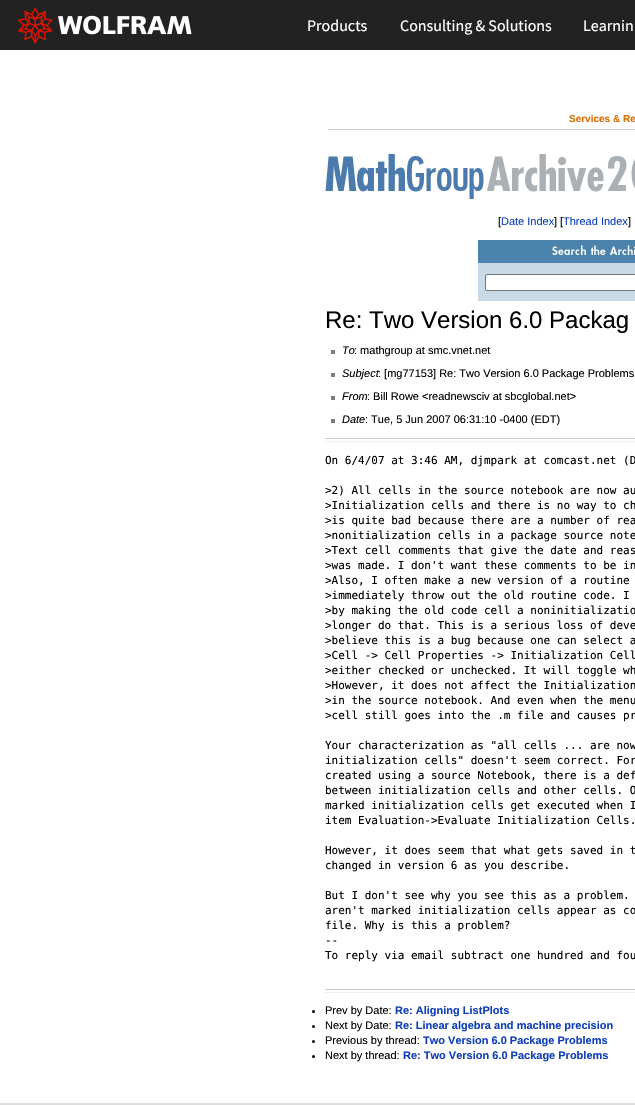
void draw(SkCanvas* canvas) {
    SkPaint paint;
    paint.setAntiAlias(true);
    auto face = [&](const char* family, int weight, float size, bool italic = false) {
        SkFontStyle style(weight, SkFontStyle::kNormal_Width,
            italic ? SkFontStyle::kItalic_Slant : SkFontStyle::kUpright_Slant);
        SkFont result(fontMgr->matchFamilyStyle(family, style), size);
        result.setSubpixel(true);
        return result;
    };
    auto write = [&](const char* s, float x, float y, const SkFont& font, SkColor color) {
        SkPaint ink(SkColor4f::FromColor(color));
        ink.setAntiAlias(true);
        canvas->drawString(s, x, y, font, ink);
    };
    auto block = [&](float x, float y, float w, float h, SkColor color) {
        SkPaint ink(SkColor4f::FromColor(color));
        ink.setAntiAlias(true);
        canvas->drawRect(SkRect::MakeXYWH(x, y, w, h), ink);
    };
    auto paste = [&](const char* path, float x, float y, float w, float h) {
        auto image = SkImages::DeferredFromEncodedData(SkData::MakeFromFileName(path));
        canvas->drawImageRect(image, SkRect::MakeXYWH(x, y, w, h), SkSamplingOptions());
    };
    canvas->clear(SK_ColorWHITE);
    block(0, 0, 635, 50, SkColorSetRGB(34, 34, 34));
    paste("pic1.png", 17, 7, 175, 37);
    auto kFont1 = face("Source Sans Pro", 400, 16);
    write("Products", 307, 31, kFont1, SK_ColorWHITE);
    write("Consulting & Solutions", 400, 31, kFont1, SK_ColorWHITE);
    write("Learnin", 583, 31, kFont1, SK_ColorWHITE);
    auto kFont2 = face("Liberation Sans", 700, 10);
    write("Services & Re", 569, 122, kFont2, SkColorSetRGB(216, 108, 0));
    block(328, 129, 307, 1, SkColorSetRGB(204, 204, 204));
    paste("pic2.png", 325, 154, 159, 45);
    paste("pic3.png", 487, 154, 117, 38);
    paste("pic4.png", 607, 156, 20, 35);
    paste("pic5.png", 631, 159, 4, 29);
    auto kFont3 = face("Liberation Sans", 400, 11);
    write("[", 498, 225, kFont3, SK_ColorBLACK);
    write("Date Index", 501, 225, kFont3, SkColorSetRGB(14, 62, 185));
    write("] [", 554, 225, kFont3, SK_ColorBLACK);
    write("Thread Index", 563, 225, kFont3, SkColorSetRGB(14, 62, 185));
    write("]", 628, 225, kFont3, SK_ColorBLACK);
    block(478, 240, 157, 23, SkColorSetRGB(75, 131, 172));
    paste("pic6.png", 552, 245, 83, 10);
    block(478, 263, 157, 38, SkColorSetRGB(201, 218, 230));
    paint.setColor(SK_ColorWHITE);
    canvas->drawRoundRect(SkRect::MakeXYWH(485.5f, 274.5f, 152, 16), 1.5f, 1.5f, paint);
    paint.setStyle(SkPaint::kStroke_Style);
    paint.setStrokeWidth(1);
    paint.setColor(SkColorSetRGB(118, 118, 118));
    canvas->drawRoundRect(SkRect::MakeXYWH(485.5f, 274.5f, 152, 16), 1.5f, 1.5f, paint);
    auto kFont4 = face("Liberation Sans", 400, 24);
    write("Re: Two Version 6.0 Packag", 325, 328, kFont4, SK_ColorBLACK);
    block(331, 350, 4, 4, SkColorSetRGB(125, 125, 124));
    auto kFont5 = face("Liberation Sans", 400, 11, true);
    write("To", 342, 354, kFont5, SK_ColorBLACK);
    write(": mathgroup at smc.vnet.net", 354, 354, kFont3, SK_ColorBLACK);
    block(331, 373, 4, 4, SkColorSetRGB(125, 125, 124));
    write("Subject", 342, 377, kFont5, SK_ColorBLACK);
    write(": [mg77153] Re: Two Version 6.0 Package Problems", 378, 377, kFont3, SK_ColorBLACK);
    block(331, 396, 4, 4, SkColorSetRGB(125, 125, 124));
    write("From", 342, 400, kFont5, SK_ColorBLACK);
    write(": Bill Rowe <readnewsciv at sbcglobal.net>", 367, 400, kFont3, SK_ColorBLACK);
    block(331, 419, 4, 4, SkColorSetRGB(125, 125, 124));
    write("Date", 342, 423, kFont5, SK_ColorBLACK);
    write(": Tue, 5 Jun 2007 06:31:10 -0400 (EDT)", 365, 423, kFont3, SK_ColorBLACK);
    block(325, 438, 310, 1, SkColorSetRGB(204, 204, 204));
    block(325, 441, 310, 1, SkColorSetRGB(239, 239, 239));
    auto kFont6 = face("DejaVu Sans Mono", 400, 11);
    write("On 6/4/07 at 3:46 AM, djmpark at comcast.net (D", 325, 464, kFont6, SK_ColorBLACK);
    write(">2) All cells in the source notebook are now au", 325, 494, kFont6, SK_ColorBLACK);
    write(">Initialization cells and there is no way to ch", 325, 509, kFont6, SK_ColorBLACK);
    write(">is quite bad because there are a number of rea", 325, 524, kFont6, SK_ColorBLACK);
    write(">nonitialization cells in a package source note", 325, 539, kFont6, SK_ColorBLACK);
    write(">Text cell comments that give the date and reas", 325, 554, kFont6, SK_ColorBLACK);
    write(">was made. I don't want these comments to be in", 325, 569, kFont6, SK_ColorBLACK);
    write(">Also, I often make a new version of a routine", 325, 584, kFont6, SK_ColorBLACK);
    write(">immediately throw out the old routine code. I", 325, 599, kFont6, SK_ColorBLACK);
    write(">by making the old code cell a noninitializatio", 325, 614, kFont6, SK_ColorBLACK);
    write(">longer do that. This is a serious loss of deve", 325, 629, kFont6, SK_ColorBLACK);
    write(">believe this is a bug because one can select a", 325, 644, kFont6, SK_ColorBLACK);
    write(">Cell -> Cell Properties -> Initialization Cell", 325, 659, kFont6, SK_ColorBLACK);
    write(">either checked or unchecked. It will toggle wh", 325, 674, kFont6, SK_ColorBLACK);
    write(">However, it does not affect the Initialization", 325, 689, kFont6, SK_ColorBLACK);
    write(">in the source notebook. And even when the menu", 325, 704, kFont6, SK_ColorBLACK);
    write(">cell still goes into the .m file and causes pr", 325, 719, kFont6, SK_ColorBLACK);
    write("Your characterization as \"all cells ... are now", 325, 749, kFont6, SK_ColorBLACK);
    write("initialization cells\" doesn't seem correct. For", 325, 764, kFont6, SK_ColorBLACK);
    write("created using a source Notebook, there is a def", 325, 779, kFont6, SK_ColorBLACK);
    write("between initialization cells and other cells. O", 325, 794, kFont6, SK_ColorBLACK);
    write("marked initialization cells get executed when I", 325, 809, kFont6, SK_ColorBLACK);
    write("item Evaluation->Evaluate Initialization Cells.", 325, 824, kFont6, SK_ColorBLACK);
    write("However, it does seem that what gets saved in t", 325, 854, kFont6, SK_ColorBLACK);
    write("changed in version 6 as you describe.", 325, 869, kFont6, SK_ColorBLACK);
    write("But I don't see why you see this as a problem.", 325, 899, kFont6, SK_ColorBLACK);
    write("aren't marked initialization cells appear as co", 325, 914, kFont6, SK_ColorBLACK);
    write("file. Why is this a problem?", 325, 929, kFont6, SK_ColorBLACK);
    write("--", 325, 944, kFont6, SK_ColorBLACK);
    write("To reply via email subtract one hundred and fou", 325, 959, kFont6, SK_ColorBLACK);
    block(325, 989, 310, 1, SkColorSetRGB(204, 204, 204));
    block(325, 992, 310, 1, SkColorSetRGB(239, 239, 239));
    paint.setStyle(SkPaint::kFill_Style);
    paint.setColor(SK_ColorBLACK);
    canvas->drawCircle(313.5f, 1011.5f, 1.5f, paint);
    write("Prev by Date:", 325, 1014, kFont3, SK_ColorBLACK);
    auto kFont7 = face("Liberation Sans", 700, 11);
    write("Re: Aligning ListPlots", 395, 1014, kFont7, SkColorSetRGB(14, 62, 185));
    canvas->drawCircle(313.5f, 1026.5f, 1.5f, paint);
    write("Next by Date:", 325, 1029, kFont3, SK_ColorBLACK);
    write("Re: Linear algebra and machine precision", 395, 1029, kFont7, SkColorSetRGB(14, 62, 185));
    canvas->drawCircle(313.5f, 1041.5f, 1.5f, paint);
    write("Previous by thread:", 325, 1044, kFont3, SK_ColorBLACK);
    write("Two Version 6.0 Package Problems", 423, 1044, kFont7, SkColorSetRGB(14, 62, 185));
    canvas->drawCircle(313.5f, 1056.5f, 1.5f, paint);
    write("Next by thread:", 325, 1059, kFont3, SK_ColorBLACK);
    write("Re: Two Version 6.0 Package Problems", 403, 1059, kFont7, SkColorSetRGB(14, 62, 185));
    block(0, 1103, 635, 2, SkColorSetRGB(221, 221, 221));
}
